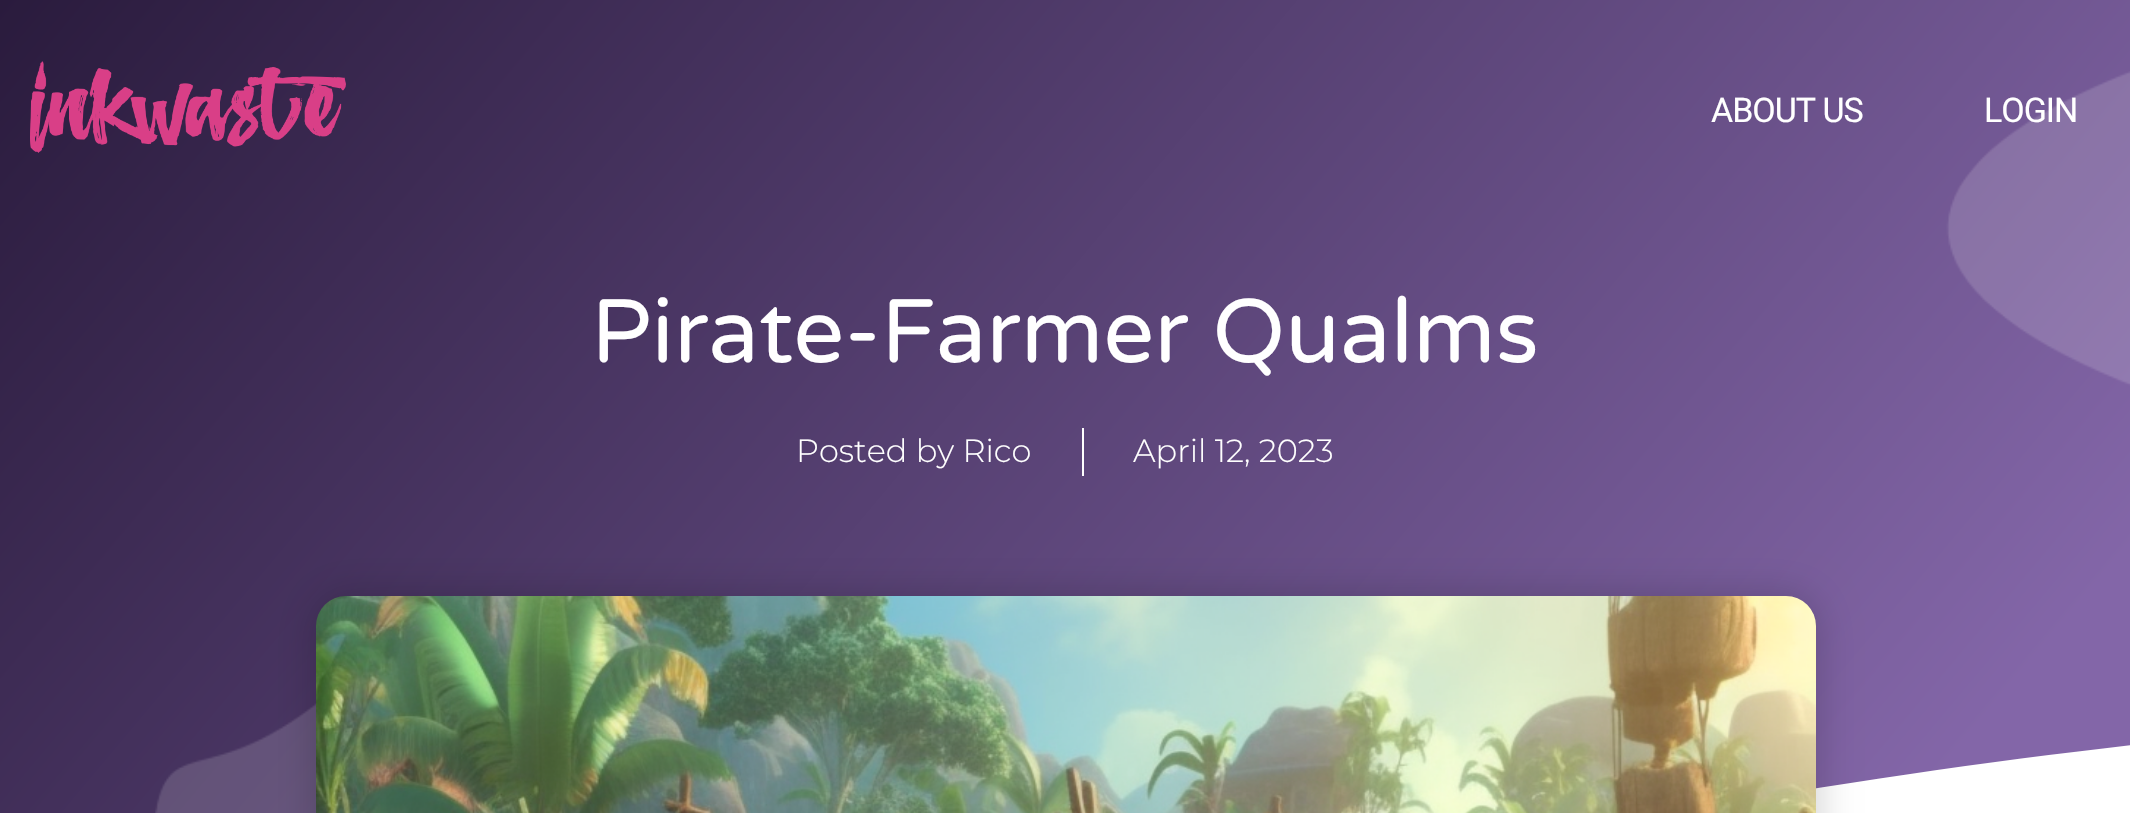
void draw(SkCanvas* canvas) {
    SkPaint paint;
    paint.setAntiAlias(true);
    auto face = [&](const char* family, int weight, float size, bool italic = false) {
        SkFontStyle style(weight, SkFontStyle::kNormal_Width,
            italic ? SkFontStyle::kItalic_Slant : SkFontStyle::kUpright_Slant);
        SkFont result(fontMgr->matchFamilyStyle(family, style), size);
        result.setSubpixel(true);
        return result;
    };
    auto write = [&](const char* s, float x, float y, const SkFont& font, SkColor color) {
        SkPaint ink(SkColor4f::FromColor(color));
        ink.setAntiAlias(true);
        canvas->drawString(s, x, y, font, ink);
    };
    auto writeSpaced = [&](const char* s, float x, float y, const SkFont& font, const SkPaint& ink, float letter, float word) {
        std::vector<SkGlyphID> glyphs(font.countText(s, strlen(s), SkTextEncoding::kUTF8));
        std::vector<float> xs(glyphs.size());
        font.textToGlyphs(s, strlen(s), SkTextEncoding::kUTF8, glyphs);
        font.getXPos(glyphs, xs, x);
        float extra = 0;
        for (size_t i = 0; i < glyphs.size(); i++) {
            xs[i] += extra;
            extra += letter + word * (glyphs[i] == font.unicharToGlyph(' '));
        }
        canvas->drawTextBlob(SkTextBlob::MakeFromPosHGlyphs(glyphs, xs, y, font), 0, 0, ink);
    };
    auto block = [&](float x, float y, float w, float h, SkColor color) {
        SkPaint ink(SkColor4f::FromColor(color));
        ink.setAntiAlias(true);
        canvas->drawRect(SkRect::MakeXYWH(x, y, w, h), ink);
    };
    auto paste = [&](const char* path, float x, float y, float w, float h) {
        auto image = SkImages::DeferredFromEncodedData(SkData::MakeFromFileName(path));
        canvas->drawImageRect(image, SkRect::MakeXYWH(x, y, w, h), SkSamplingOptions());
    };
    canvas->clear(SK_ColorWHITE);
    {
        const SkColor colors[] = {SkColorSetRGB(42, 27, 61), SkColorSetRGB(131, 102, 168)};
        const float stops[] = {0, 0.89f};
        const SkPoint ends[] = {{210, -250}, {1920, 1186}};
        paint.setShader(SkGradientShader::MakeLinear(ends, colors, stops, 2, SkTileMode::kClamp));
        paint.setAlpha(255);
    }
    canvas->drawRect(SkRect::MakeXYWH(0, 0, 2130, 813), paint);
    paste("pic2.png", 155, 71, 1975, 742);
    paste("pic1.png", 30, 61, 316, 92);
    auto kFont1 = face("Roboto", 400, 34);
    paint.setShader(nullptr);
    paint.setColor(SK_ColorWHITE);
    writeSpaced("ABOUT US", 1711, 122, kFont1, paint, -1, 0);
    writeSpaced("LOGIN", 1984, 122, kFont1, paint, -1, 0);
    auto kFont2 = face("Varela Round", 400, 90);
    write("Pirate-Farmer Qualms", 591, 362, kFont2, SK_ColorWHITE);
    auto kFont3 = face("Montserrat", 300, 32);
    write("Posted by Rico", 796, 462, kFont3, SK_ColorWHITE);
    block(1082, 428, 2, 48, SK_ColorWHITE);
    write("April 12, 2023", 1133, 462, kFont3, SK_ColorWHITE);
    canvas->drawPath(SkPathBuilder().moveTo(633, 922).cubicTo(758, 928, 919, 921, 1052, 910).cubicTo(1182, 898, 1444, 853, 1608, 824).cubicTo(2028, 747, 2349, 717, 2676, 705).cubicTo(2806, 700, 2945, 696, 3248, 711).cubicTo(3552, 725, 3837, 772, 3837, 772).lineTo(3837, 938).lineTo(-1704, 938).lineTo(-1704, 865).cubicTo(-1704, 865, -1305, 787, -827, 792).cubicTo(-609, 794, -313, 808, -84, 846).cubicTo(33, 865, 205, 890, 357, 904).cubicTo(508, 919, 576, 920, 633, 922).close().detach(), paint);
    paint.setColor(SkColorSetARGB(51, 0, 0, 0));
    paint.setMaskFilter(SkMaskFilter::MakeBlur(kNormal_SkBlurStyle, 20));
    canvas->drawRoundRect(SkRect::MakeXYWH(316, 596, 1500, 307), 30, 30, paint);
    paint.setMaskFilter(nullptr);
    paste("pic3.png", 316, 596, 1500, 217);
}
